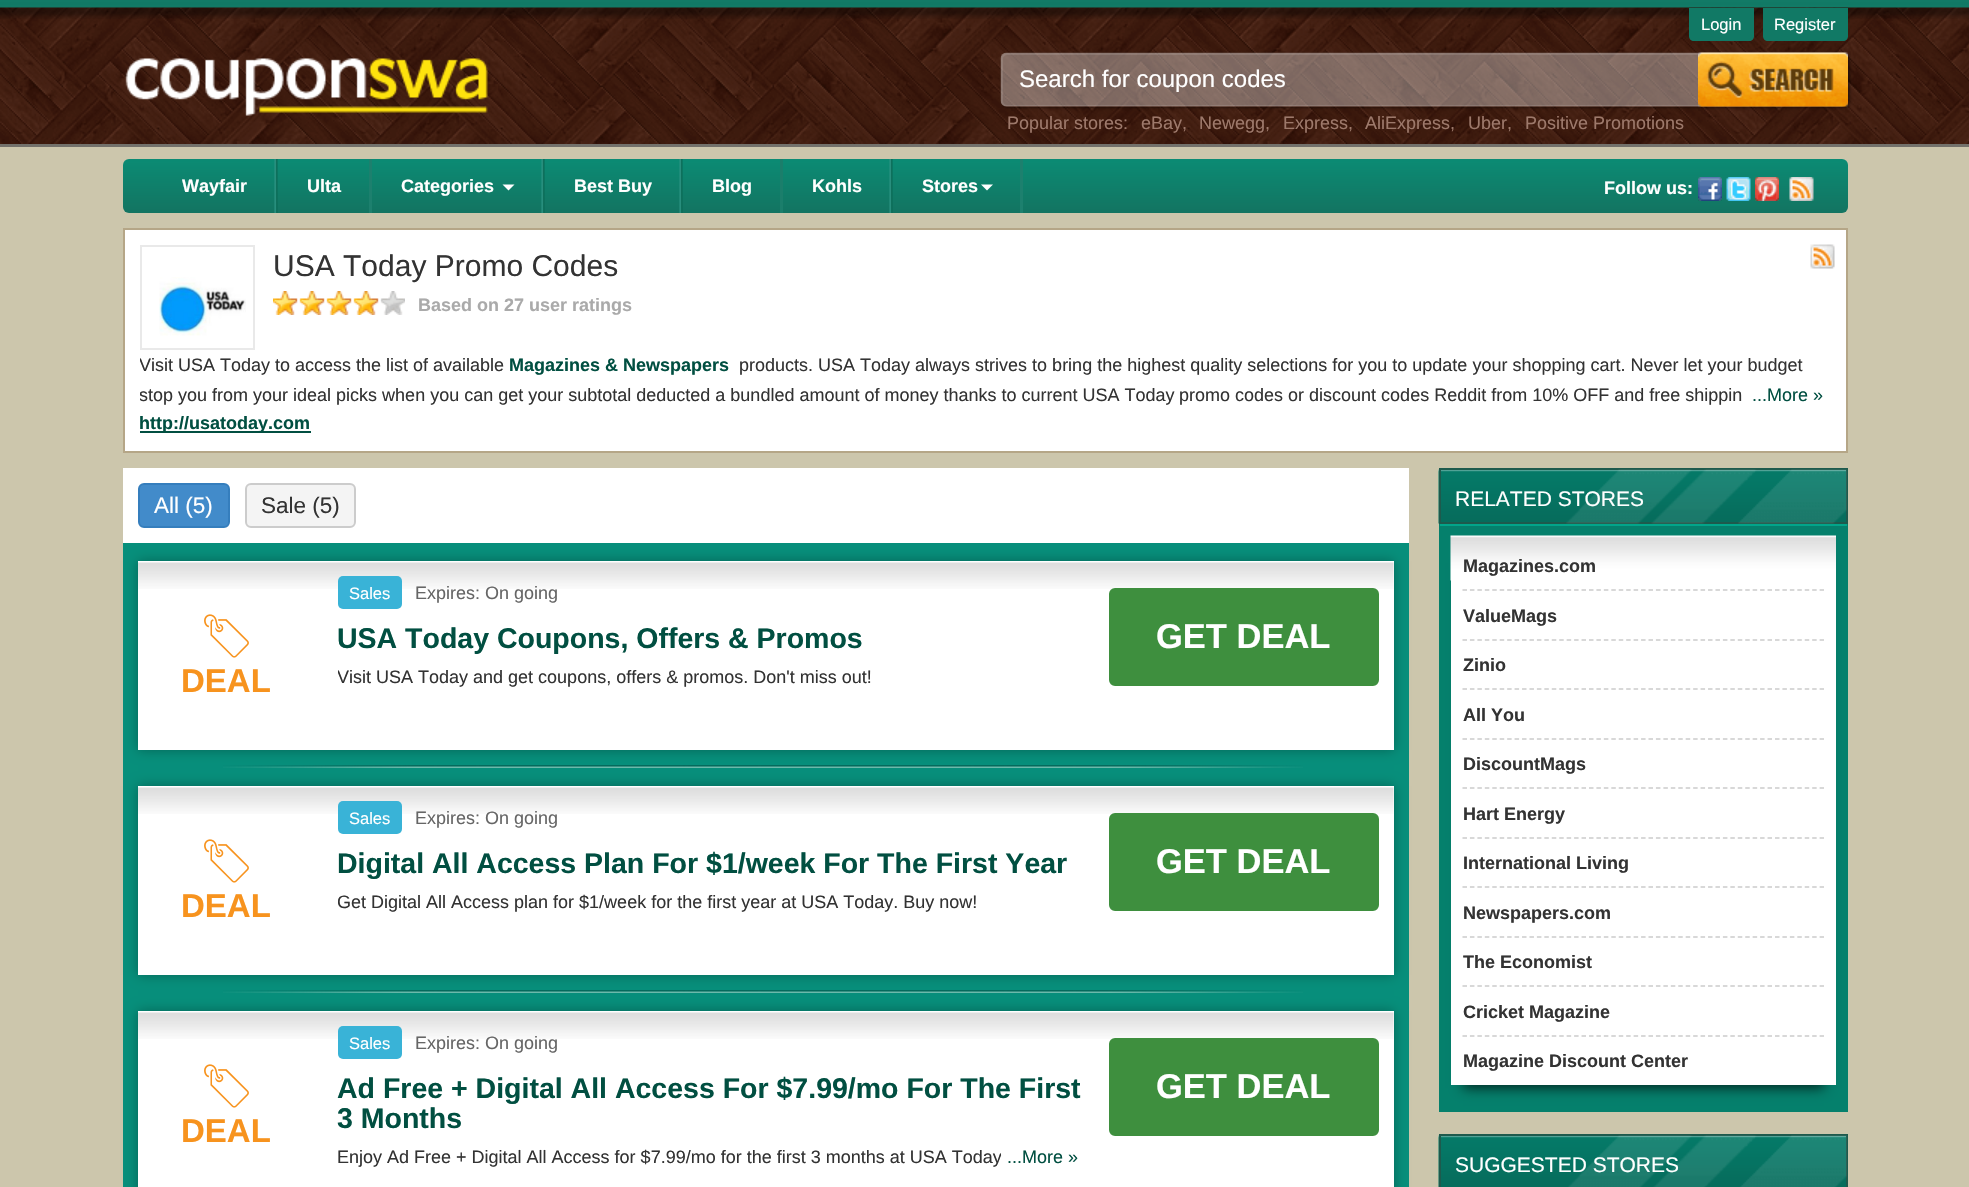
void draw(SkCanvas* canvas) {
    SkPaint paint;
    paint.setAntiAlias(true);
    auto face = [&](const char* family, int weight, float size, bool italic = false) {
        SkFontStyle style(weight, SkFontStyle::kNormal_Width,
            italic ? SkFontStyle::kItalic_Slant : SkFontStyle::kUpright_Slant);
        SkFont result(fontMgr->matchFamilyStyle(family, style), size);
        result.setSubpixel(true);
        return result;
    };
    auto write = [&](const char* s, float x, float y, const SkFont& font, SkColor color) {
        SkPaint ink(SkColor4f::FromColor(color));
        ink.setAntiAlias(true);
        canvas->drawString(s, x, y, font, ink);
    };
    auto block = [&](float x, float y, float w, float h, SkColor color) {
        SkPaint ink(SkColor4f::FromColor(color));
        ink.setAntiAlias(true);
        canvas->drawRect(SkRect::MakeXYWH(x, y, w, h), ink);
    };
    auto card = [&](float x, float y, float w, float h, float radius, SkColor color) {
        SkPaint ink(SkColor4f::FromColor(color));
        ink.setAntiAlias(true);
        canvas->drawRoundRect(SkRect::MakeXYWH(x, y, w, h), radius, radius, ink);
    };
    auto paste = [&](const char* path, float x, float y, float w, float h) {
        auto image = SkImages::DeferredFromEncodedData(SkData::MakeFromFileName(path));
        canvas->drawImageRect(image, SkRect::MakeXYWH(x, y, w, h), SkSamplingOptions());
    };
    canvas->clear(SK_ColorWHITE);
    paste("pic1.png", 0, 7, 1969, 137);
    paste("pic2.png", 0, 0, 1969, 19);
    paint.setColor(SkColorSetRGB(17, 121, 101));
    canvas->drawPath(SkPathBuilder().moveTo(1689, 8).lineTo(1754, 8).lineTo(1754, 36).cubicTo(1754, 39, 1752, 41, 1749, 41).lineTo(1694, 41).cubicTo(1691, 41, 1689, 39, 1689, 36).close().detach(), paint);
    auto kFont1 = face("Liberation Sans", 400, 16.5f);
    write("Login", 1701, 30, kFont1, SK_ColorWHITE);
    canvas->drawPath(SkPathBuilder().moveTo(1763, 8).lineTo(1848, 8).lineTo(1848, 36).cubicTo(1848, 39, 1846, 41, 1843, 41).lineTo(1768, 41).cubicTo(1765, 41, 1763, 39, 1763, 36).close().detach(), paint);
    write("Register", 1774, 30, kFont1, SK_ColorWHITE);
    paste("pic3.png", 125, 58, 363, 58);
    canvas->save();
    canvas->clipPath(SkPathBuilder(SkPathFillType::kEvenOdd).moveTo(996, 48).lineTo(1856, 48).lineTo(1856, 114).lineTo(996, 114).close().moveTo(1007, 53).lineTo(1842, 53).cubicTo(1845.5f, 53, 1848, 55.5f, 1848, 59).lineTo(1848, 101).cubicTo(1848, 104.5f, 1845.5f, 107, 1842, 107).lineTo(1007, 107).cubicTo(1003.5f, 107, 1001, 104.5f, 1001, 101).lineTo(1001, 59).cubicTo(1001, 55.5f, 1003.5f, 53, 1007, 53).close().detach(), true);
    paint.setColor(SkColorSetARGB(102, 0, 0, 0));
    paint.setMaskFilter(SkMaskFilter::MakeBlur(kNormal_SkBlurStyle, 1.5f));
    canvas->drawRoundRect(SkRect::MakeXYWH(1002, 54, 848, 54), 6, 6, paint);
    paint.setMaskFilter(nullptr);
    canvas->restore();
    paste("pic4.png", 1000, 52, 848, 55);
    paint.setStyle(SkPaint::kStroke_Style);
    paint.setStrokeWidth(2);
    paint.setColor(SkColorSetARGB(26, 255, 255, 255));
    canvas->drawRoundRect(SkRect::MakeXYWH(1002, 54, 845, 52), 5, 5, paint);
    auto kFont2 = face("Liberation Sans", 400, 24);
    write("Search for coupon codes", 1019, 87, kFont2, SK_ColorWHITE);
    paste("pic5.png", 1698, 52, 150, 55);
    auto kFont3 = face("Liberation Sans", 400, 18);
    write("Popular stores:", 1007, 129, kFont3, SkColorSetRGB(157, 121, 107));
    write("eBay,", 1141, 129, kFont3, SkColorSetRGB(157, 121, 107));
    write("Newegg,", 1199, 129, kFont3, SkColorSetRGB(157, 121, 107));
    write("Express,", 1283, 129, kFont3, SkColorSetRGB(157, 121, 107));
    write("AliExpress,", 1365, 129, kFont3, SkColorSetRGB(157, 121, 107));
    write("Uber,", 1468, 129, kFont3, SkColorSetRGB(157, 121, 107));
    write("Positive Promotions", 1525, 129, kFont3, SkColorSetRGB(157, 121, 107));
    block(0, 147, 1969, 1040, SkColorSetRGB(204, 198, 172));
    block(0, 144, 1969, 3, SkColorSetRGB(115, 113, 107));
    paint.setStyle(SkPaint::kFill_Style);
    {
        const SkColor colors[] = {SkColorSetRGB(11, 139, 116), SkColorSetRGB(19, 116, 97)};
        const float stops[] = {0, 1};
        const SkPoint ends[] = {{986, 159}, {986, 213}};
        paint.setShader(SkGradientShader::MakeLinear(ends, colors, stops, 2, SkTileMode::kClamp));
        paint.setAlpha(255);
    }
    canvas->drawRoundRect(SkRect::MakeXYWH(123, 159, 1725, 54), 6, 6, paint);
    paste("pic6.png", 274, 159, 4, 54);
    auto kFont4 = face("Liberation Sans", 700, 18);
    write("Wayfair", 182, 192, kFont4, SK_ColorWHITE);
    block(369, 159, 3, 54, SkColorSetRGB(29, 128, 110));
    write("Ulta", 307, 192, kFont4, SK_ColorWHITE);
    paste("pic6.png", 541, 159, 4, 54);
    write("Categories", 401, 192, kFont4, SK_ColorWHITE);
    paint.setShader(nullptr);
    paint.setColor(SK_ColorWHITE);
    canvas->drawPath(SkPathBuilder().moveTo(502.5f, 184.5f).lineTo(514.5f, 184.5f).lineTo(508.5f, 190.5f).close().detach(), paint);
    paste("pic6.png", 679, 159, 4, 54);
    write("Best Buy", 574, 192, kFont4, SK_ColorWHITE);
    block(780, 159, 3, 54, SkColorSetRGB(27, 126, 107));
    write("Blog", 712, 192, kFont4, SK_ColorWHITE);
    paste("pic6.png", 889, 159, 4, 54);
    write("Kohls", 812, 192, kFont4, SK_ColorWHITE);
    block(1020, 159, 3, 54, SkColorSetRGB(29, 128, 110));
    write("Stores", 922, 192, kFont4, SK_ColorWHITE);
    canvas->drawPath(SkPathBuilder().moveTo(981, 184.5f).lineTo(993, 184.5f).lineTo(987, 190.5f).close().detach(), paint);
    write("Follow us:", 1604, 194, kFont4, SK_ColorWHITE);
    paste("pic7.png", 1698, 177, 24, 24);
    paste("pic8.png", 1726, 177, 25, 24);
    paste("pic9.png", 1755, 177, 24, 24);
    paste("pic10.png", 1789, 177, 25, 24);
    canvas->drawRect(SkRect::MakeXYWH(124, 229, 1723, 223), paint);
    paint.setStyle(SkPaint::kStroke_Style);
    paint.setColor(SkColorSetRGB(181, 166, 135));
    canvas->drawRect(SkRect::MakeXYWH(124, 229, 1723, 223), paint);
    paint.setColor(SkColorSetRGB(233, 233, 233));
    canvas->drawRect(SkRect::MakeXYWH(141, 246, 113, 103), paint);
    paste("pic11.png", 159, 277, 87, 59);
    auto kFont5 = face("Liberation Sans", 400, 30);
    write("USA Today Promo Codes", 273, 276, kFont5, SkColorSetRGB(51, 51, 51));
    paste("pic12.png", 1810, 244, 25, 25);
    paste("pic13.png", 273, 291, 132, 24);
    write("Based on 27 user ratings", 418, 311, kFont4, SkColorSetRGB(170, 170, 170));
    canvas->save();
    canvas->clipRect(SkRect::MakeXYWH(140, 350, 1692, 60));
    write("Visit USA Today", 139, 371, kFont3, SkColorSetRGB(51, 51, 51));
    canvas->restore();
    write("to access the list of available", 275, 371, kFont3, SkColorSetRGB(51, 51, 51));
    write("Magazines & Newspapers", 509, 371, kFont4, SkColorSetRGB(1, 79, 65));
    write("products. USA Today always strives to bring the highest quality selections for you to update your shopping cart. Never let your budget", 739, 371, kFont3, SkColorSetRGB(51, 51, 51));
    canvas->save();
    canvas->clipRect(SkRect::MakeXYWH(140, 350, 1692, 60));
    write("stop you from your ideal picks when you can get your subtotal deducted a bundled amount of money thanks to current USA Today", 139, 401, kFont3, SkColorSetRGB(51, 51, 51));
    canvas->restore();
    write("promo codes or discount codes Reddit from 10% OFF and free shippin", 1179, 401, kFont3, SkColorSetRGB(51, 51, 51));
    write("...More »", 1752, 401, kFont3, SkColorSetRGB(1, 79, 65));
    block(140, 431, 171, 2, SkColorSetRGB(1, 79, 65));
    write("http://usatoday.com", 139, 429, kFont4, SkColorSetRGB(1, 79, 65));
    block(123, 543, 1286, 644, SkColorSetRGB(7, 143, 123));
    paste("pic14.png", 223, 765, 1080, 3);
    paint.setStyle(SkPaint::kFill_Style);
    paint.setColor(SkColorSetARGB(77, 0, 0, 0));
    paint.setMaskFilter(SkMaskFilter::MakeBlur(kNormal_SkBlurStyle, 6));
    canvas->drawRect(SkRect::MakeXYWH(138, 561, 1256, 189), paint);
    paint.setMaskFilter(nullptr);
    block(123, 468, 1286, 75, SK_ColorWHITE);
    paint.setColor(SkColorSetRGB(66, 139, 202));
    canvas->drawRoundRect(SkRect::MakeXYWH(139, 484, 90, 43), 5, 5, paint);
    paint.setStyle(SkPaint::kStroke_Style);
    paint.setColor(SkColorSetRGB(53, 126, 189));
    canvas->drawRoundRect(SkRect::MakeXYWH(139, 484, 90, 43), 5, 5, paint);
    auto kFont6 = face("Liberation Sans", 400, 22.5f);
    write("All (5)", 154, 513, kFont6, SK_ColorWHITE);
    paint.setStyle(SkPaint::kFill_Style);
    paint.setColor(SkColorSetRGB(244, 244, 244));
    canvas->drawRoundRect(SkRect::MakeXYWH(246, 484, 109, 43), 5, 5, paint);
    paint.setStyle(SkPaint::kStroke_Style);
    paint.setColor(SkColorSetRGB(204, 204, 204));
    canvas->drawRoundRect(SkRect::MakeXYWH(246, 484, 109, 43), 5, 5, paint);
    write("Sale (5)", 261, 513, kFont6, SkColorSetRGB(51, 51, 51));
    block(138, 561, 1256, 189, SK_ColorWHITE);
    paste("pic15.png", 138, 562, 1256, 27);
    paste("pic16.png", 204, 614, 45, 44);
    auto kFont7 = face("Liberation Sans", 700, 33);
    write("DEAL", 181, 692, kFont7, SkColorSetRGB(247, 147, 30));
    card(338, 576, 64, 33, 5, SkColorSetRGB(57, 179, 215));
    write("Sales", 349, 599, kFont1, SK_ColorWHITE);
    write("Expires: On going", 415, 599, kFont3, SkColorSetRGB(102, 102, 102));
    auto kFont8 = face("Liberation Sans", 700, 28.5f);
    write("USA Today Coupons, Offers & Promos", 337, 648, kFont8, SkColorSetRGB(1, 79, 65));
    canvas->save();
    canvas->clipRect(SkRect::MakeXYWH(338, 662, 748, 30));
    write("Visit USA Today and get coupons, offers & promos. Don't miss out!", 337, 683, kFont3, SkColorSetRGB(51, 51, 51));
    canvas->restore();
    paint.setStyle(SkPaint::kFill_Style);
    paint.setColor(SkColorSetRGB(62, 143, 62));
    canvas->drawRoundRect(SkRect::MakeXYWH(1110, 589, 268, 96), 5, 5, paint);
    paint.setStyle(SkPaint::kStroke_Style);
    canvas->drawRoundRect(SkRect::MakeXYWH(1110, 589, 268, 96), 5, 5, paint);
    auto kFont9 = face("Liberation Sans", 700, 34.5f);
    write("GET DEAL", 1156, 648, kFont9, SK_ColorWHITE);
    paste("pic14.png", 223, 990, 1080, 3);
    paint.setStyle(SkPaint::kFill_Style);
    paint.setColor(SkColorSetARGB(77, 0, 0, 0));
    paint.setMaskFilter(SkMaskFilter::MakeBlur(kNormal_SkBlurStyle, 6));
    canvas->drawRect(SkRect::MakeXYWH(138, 786, 1256, 189), paint);
    paint.setMaskFilter(nullptr);
    block(138, 786, 1256, 189, SK_ColorWHITE);
    paste("pic15.png", 138, 787, 1256, 27);
    paste("pic16.png", 204, 839, 45, 44);
    write("DEAL", 181, 917, kFont7, SkColorSetRGB(247, 147, 30));
    card(338, 801, 64, 33, 5, SkColorSetRGB(57, 179, 215));
    write("Sales", 349, 824, kFont1, SK_ColorWHITE);
    write("Expires: On going", 415, 824, kFont3, SkColorSetRGB(102, 102, 102));
    write("Digital All Access Plan For $1/week For The First Year", 337, 873, kFont8, SkColorSetRGB(1, 79, 65));
    canvas->save();
    canvas->clipRect(SkRect::MakeXYWH(338, 887, 748, 30));
    write("Get Digital All Access plan for $1/week for the first year at USA Today. Buy now!", 337, 908, kFont3, SkColorSetRGB(51, 51, 51));
    canvas->restore();
    paint.setColor(SkColorSetRGB(62, 143, 62));
    canvas->drawRoundRect(SkRect::MakeXYWH(1110, 814, 268, 96), 5, 5, paint);
    paint.setStyle(SkPaint::kStroke_Style);
    canvas->drawRoundRect(SkRect::MakeXYWH(1110, 814, 268, 96), 5, 5, paint);
    write("GET DEAL", 1156, 873, kFont9, SK_ColorWHITE);
    paint.setStyle(SkPaint::kFill_Style);
    paint.setColor(SkColorSetARGB(77, 0, 0, 0));
    paint.setMaskFilter(SkMaskFilter::MakeBlur(kNormal_SkBlurStyle, 6));
    canvas->drawRect(SkRect::MakeXYWH(138, 1011, 1256, 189), paint);
    paint.setMaskFilter(nullptr);
    block(138, 1011, 1256, 176, SK_ColorWHITE);
    paste("pic15.png", 138, 1012, 1256, 27);
    paste("pic16.png", 204, 1064, 45, 44);
    write("DEAL", 181, 1142, kFont7, SkColorSetRGB(247, 147, 30));
    card(338, 1026, 64, 33, 5, SkColorSetRGB(57, 179, 215));
    write("Sales", 349, 1049, kFont1, SK_ColorWHITE);
    write("Expires: On going", 415, 1049, kFont3, SkColorSetRGB(102, 102, 102));
    write("Ad Free + Digital All Access For $7.99/mo For The First", 337, 1098, kFont8, SkColorSetRGB(1, 79, 65));
    write("3 Months", 337, 1128, kFont8, SkColorSetRGB(1, 79, 65));
    write("Enjoy Ad Free + Digital All Access for $7.99/mo for the first 3 months at USA Today", 337, 1163, kFont3, SkColorSetRGB(51, 51, 51));
    block(1001, 1153, 1, 2, SK_ColorWHITE);
    write("...More »", 1007, 1163, kFont3, SkColorSetRGB(1, 79, 65));
    paint.setColor(SkColorSetRGB(62, 143, 62));
    canvas->drawRoundRect(SkRect::MakeXYWH(1110, 1039, 268, 96), 5, 5, paint);
    paint.setStyle(SkPaint::kStroke_Style);
    canvas->drawRoundRect(SkRect::MakeXYWH(1110, 1039, 268, 96), 5, 5, paint);
    write("GET DEAL", 1156, 1098, kFont9, SK_ColorWHITE);
    block(1439, 524, 409, 588, SkColorSetRGB(5, 128, 108));
    paste("pic17.png", 1438, 469, 408, 55);
    paint.setColor(SkColorSetRGB(30, 90, 77));
    canvas->drawRect(SkRect::MakeXYWH(1440, 469, 407, 54), paint);
    paste("pic18.png", 1566, 469, 281, 55);
    auto kFont10 = face("Liberation Sans", 400, 21);
    write("RELATED STORES", 1455, 506, kFont10, SK_ColorWHITE);
    block(1440, 524, 407, 2, SkColorSetRGB(2, 165, 138));
    paint.setStyle(SkPaint::kFill_Style);
    paint.setColor(SkColorSetARGB(179, 0, 0, 0));
    paint.setMaskFilter(SkMaskFilter::MakeBlur(kNormal_SkBlurStyle, 6));
    canvas->drawRect(SkRect::MakeXYWH(1463, 563, 361, 525), paint);
    paint.setMaskFilter(nullptr);
    block(1451, 580, 385, 505, SK_ColorWHITE);
    paste("pic19.png", 1450, 535, 386, 46);
    paint.setStyle(SkPaint::kStroke_Style);
    paint.setStrokeWidth(1.5f);
    paint.setColor(SkColorSetRGB(204, 204, 204));
    paint.setPathEffect(SkDashPathEffect::Make({{4.5f, 2.94f}}, 0));
    canvas->drawPath(SkPathBuilder().moveTo(1462.5f, 590).lineTo(1824, 590).detach(), paint);
    paint.setPathEffect(nullptr);
    write("Magazines.com", 1463, 572, kFont4, SkColorSetRGB(51, 51, 51));
    paint.setPathEffect(SkDashPathEffect::Make({{4.5f, 2.94f}}, 0));
    canvas->drawPath(SkPathBuilder().moveTo(1462.5f, 640).lineTo(1824, 640).detach(), paint);
    paint.setPathEffect(nullptr);
    write("ValueMags", 1463, 622, kFont4, SkColorSetRGB(51, 51, 51));
    paint.setPathEffect(SkDashPathEffect::Make({{4.5f, 2.94f}}, 0));
    canvas->drawPath(SkPathBuilder().moveTo(1462.5f, 689).lineTo(1824, 689).detach(), paint);
    paint.setPathEffect(nullptr);
    write("Zinio", 1463, 671, kFont4, SkColorSetRGB(51, 51, 51));
    paint.setPathEffect(SkDashPathEffect::Make({{4.5f, 2.94f}}, 0));
    canvas->drawPath(SkPathBuilder().moveTo(1462.5f, 739).lineTo(1824, 739).detach(), paint);
    paint.setPathEffect(nullptr);
    write("All You", 1463, 721, kFont4, SkColorSetRGB(51, 51, 51));
    paint.setPathEffect(SkDashPathEffect::Make({{4.5f, 2.94f}}, 0));
    canvas->drawPath(SkPathBuilder().moveTo(1462.5f, 788).lineTo(1824, 788).detach(), paint);
    paint.setPathEffect(nullptr);
    write("DiscountMags", 1463, 770, kFont4, SkColorSetRGB(51, 51, 51));
    paint.setPathEffect(SkDashPathEffect::Make({{4.5f, 2.94f}}, 0));
    canvas->drawPath(SkPathBuilder().moveTo(1462.5f, 838).lineTo(1824, 838).detach(), paint);
    paint.setPathEffect(nullptr);
    write("Hart Energy", 1463, 820, kFont4, SkColorSetRGB(51, 51, 51));
    paint.setPathEffect(SkDashPathEffect::Make({{4.5f, 2.94f}}, 0));
    canvas->drawPath(SkPathBuilder().moveTo(1462.5f, 887).lineTo(1824, 887).detach(), paint);
    paint.setPathEffect(nullptr);
    write("International Living", 1463, 869, kFont4, SkColorSetRGB(51, 51, 51));
    paint.setPathEffect(SkDashPathEffect::Make({{4.5f, 2.94f}}, 0));
    canvas->drawPath(SkPathBuilder().moveTo(1462.5f, 937).lineTo(1824, 937).detach(), paint);
    paint.setPathEffect(nullptr);
    write("Newspapers.com", 1463, 919, kFont4, SkColorSetRGB(51, 51, 51));
    paint.setPathEffect(SkDashPathEffect::Make({{4.5f, 2.94f}}, 0));
    canvas->drawPath(SkPathBuilder().moveTo(1462.5f, 986).lineTo(1824, 986).detach(), paint);
    paint.setPathEffect(nullptr);
    write("The Economist", 1463, 968, kFont4, SkColorSetRGB(51, 51, 51));
    paint.setPathEffect(SkDashPathEffect::Make({{4.5f, 2.94f}}, 0));
    canvas->drawPath(SkPathBuilder().moveTo(1462.5f, 1036).lineTo(1824, 1036).detach(), paint);
    paint.setPathEffect(nullptr);
    write("Cricket Magazine", 1463, 1018, kFont4, SkColorSetRGB(51, 51, 51));
    write("Magazine Discount Center", 1463, 1067, kFont4, SkColorSetRGB(51, 51, 51));
    paste("pic20.png", 1438, 1135, 408, 52);
    paint.setStrokeWidth(2);
    paint.setColor(SkColorSetRGB(30, 90, 77));
    canvas->drawRect(SkRect::MakeXYWH(1440, 1135, 407, 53), paint);
    paste("pic21.png", 1568, 1135, 279, 52);
    write("SUGGESTED STORES", 1455, 1172, kFont10, SK_ColorWHITE);
}
